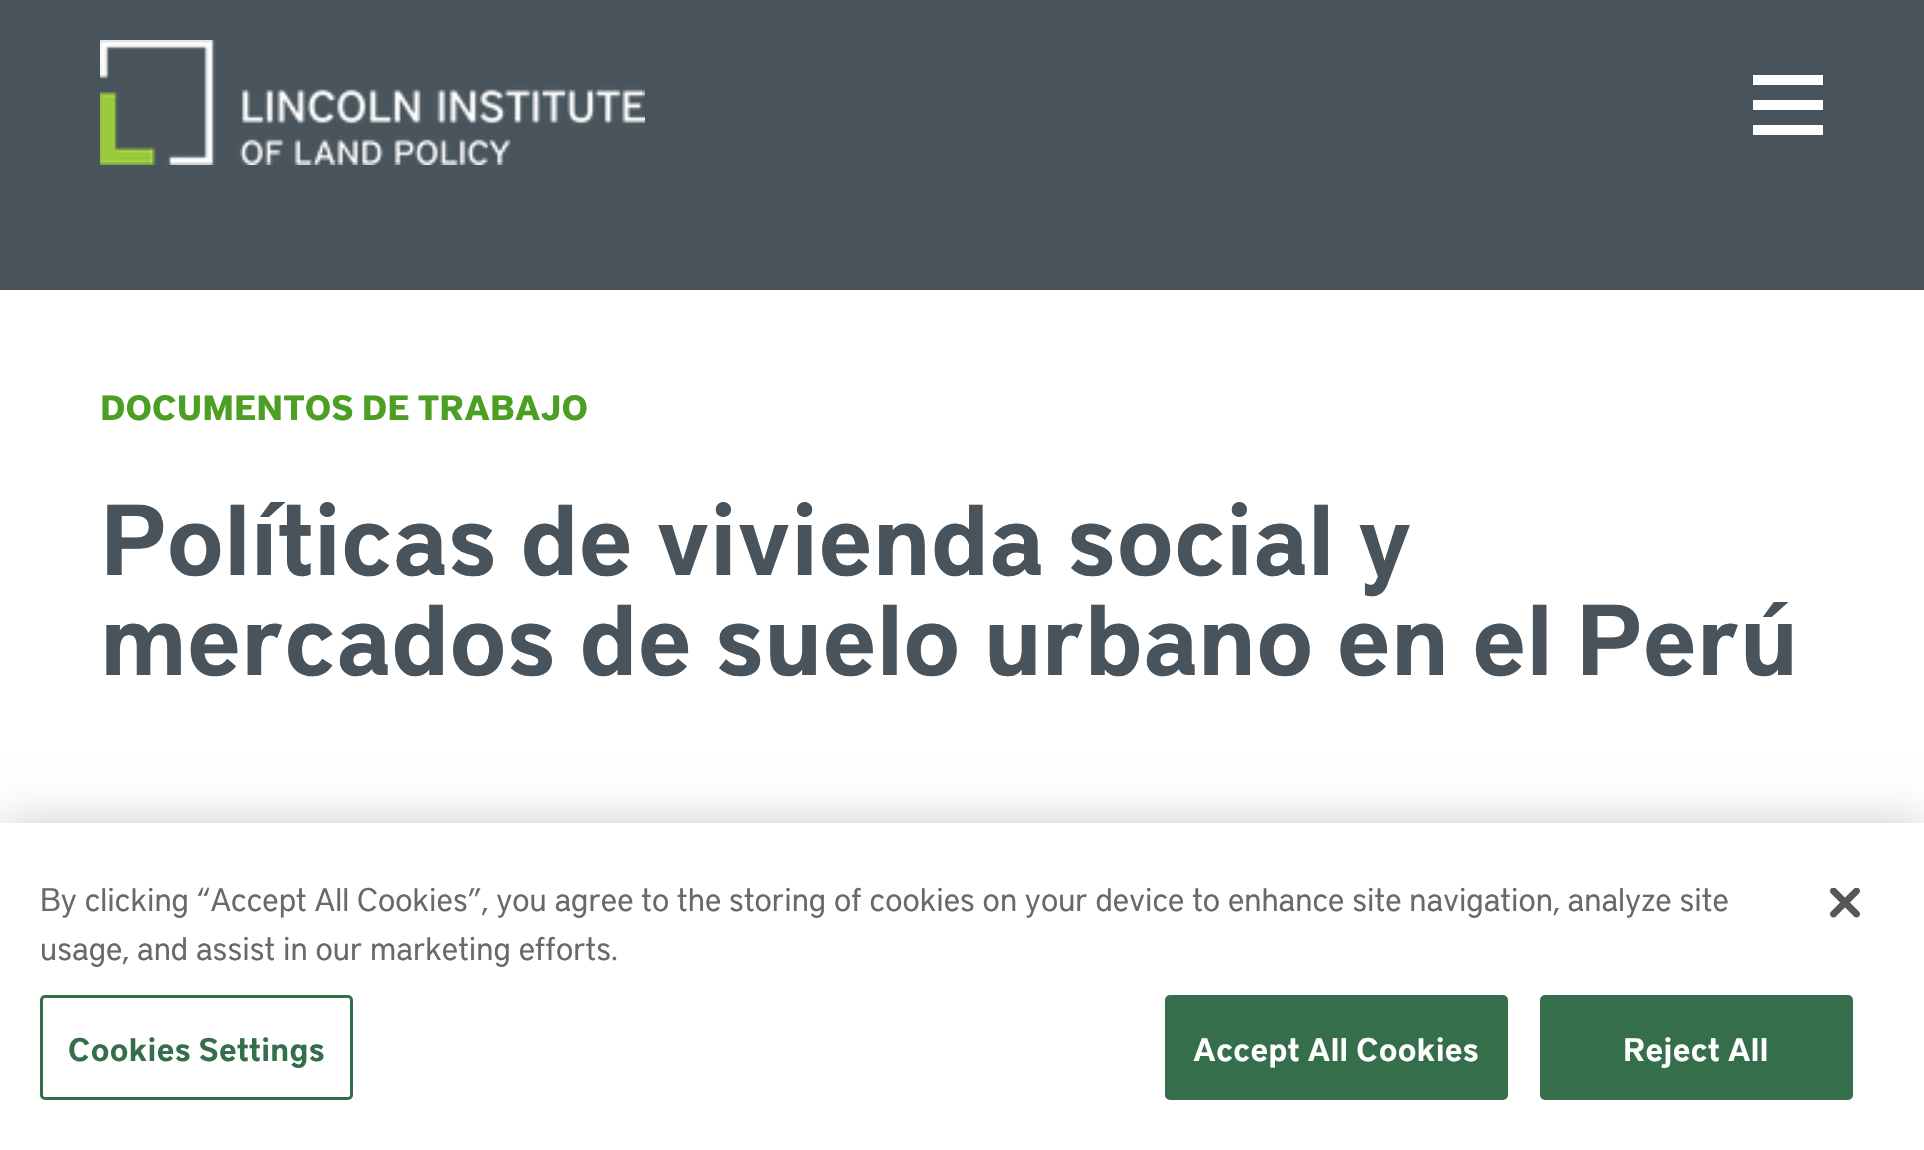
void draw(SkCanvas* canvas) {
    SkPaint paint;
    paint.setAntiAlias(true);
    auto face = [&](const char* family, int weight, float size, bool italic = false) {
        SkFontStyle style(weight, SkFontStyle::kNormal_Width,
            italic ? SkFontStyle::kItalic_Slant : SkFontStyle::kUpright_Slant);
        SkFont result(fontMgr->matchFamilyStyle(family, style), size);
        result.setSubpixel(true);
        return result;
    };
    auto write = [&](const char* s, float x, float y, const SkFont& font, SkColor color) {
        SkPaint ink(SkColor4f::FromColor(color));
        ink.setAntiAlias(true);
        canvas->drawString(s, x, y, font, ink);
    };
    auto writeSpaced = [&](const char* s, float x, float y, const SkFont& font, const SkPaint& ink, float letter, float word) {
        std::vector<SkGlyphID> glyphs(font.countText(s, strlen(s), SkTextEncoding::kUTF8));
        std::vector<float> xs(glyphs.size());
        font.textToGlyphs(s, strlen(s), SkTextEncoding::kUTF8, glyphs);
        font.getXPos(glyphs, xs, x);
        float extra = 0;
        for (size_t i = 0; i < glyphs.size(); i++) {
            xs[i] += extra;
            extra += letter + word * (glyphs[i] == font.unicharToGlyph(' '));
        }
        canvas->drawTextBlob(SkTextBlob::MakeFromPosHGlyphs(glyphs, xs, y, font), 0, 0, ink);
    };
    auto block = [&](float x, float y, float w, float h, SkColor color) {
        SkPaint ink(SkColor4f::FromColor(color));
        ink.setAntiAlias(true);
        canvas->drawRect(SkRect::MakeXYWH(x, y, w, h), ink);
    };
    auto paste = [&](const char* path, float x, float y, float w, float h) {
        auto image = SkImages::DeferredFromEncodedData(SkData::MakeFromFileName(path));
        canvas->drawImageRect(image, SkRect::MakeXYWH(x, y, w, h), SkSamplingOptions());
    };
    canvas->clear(SK_ColorWHITE);
    block(0, 0, 1924, 290, SkColorSetRGB(72, 83, 91));
    paste("pic1.png", 100, 40, 545, 125);
    block(1753, 75, 70, 10, SK_ColorWHITE);
    block(1753, 100, 70, 10, SK_ColorWHITE);
    block(1753, 125, 70, 10, SK_ColorWHITE);
    auto kFont1 = face("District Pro", 700, 35);
    write("DOCUMENTOS DE TRABAJO", 100, 420, kFont1, SkColorSetRGB(76, 159, 34));
    auto kFont2 = face("District Pro", 600, 100);
    write("Políticas de vivienda social y", 100, 575, kFont2, SkColorSetRGB(72, 83, 91));
    write("mercados de suelo urbano en el Perú", 100, 675, kFont2, SkColorSetRGB(72, 83, 91));
    paint.setColor(SkColorSetARGB(51, 0, 0, 0));
    paint.setMaskFilter(SkMaskFilter::MakeBlur(kNormal_SkBlurStyle, 22.5f));
    canvas->drawRect(SkRect::MakeXYWH(0, 823, 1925, 327), paint);
    paint.setMaskFilter(nullptr);
    block(0, 823, 1924, 327, SK_ColorWHITE);
    auto kFont3 = face("District Pro", 400, 32.52f);
    write("By clicking “Accept All Cookies”, you agree to the storing of cookies on your device to enhance site navigation, analyze site", 40, 911, kFont3, SkColorSetRGB(105, 105, 105));
    write("usage, and assist in our marketing efforts.", 40, 960, kFont3, SkColorSetRGB(105, 105, 105));
    paint.setStyle(SkPaint::kStroke_Style);
    paint.setStrokeWidth(3);
    paint.setColor(SkColorSetRGB(52, 110, 74));
    canvas->drawRoundRect(SkRect::MakeXYWH(41.5f, 996.5f, 310, 102), 3.5f, 3.5f, paint);
    auto kFont4 = face("District Pro", 600, 32.52f);
    paint.setStyle(SkPaint::kFill_Style);
    writeSpaced("Cookies Settings", 68, 1061, kFont4, paint, 0.3f, 0);
    canvas->drawRoundRect(SkRect::MakeXYWH(1166.5f, 996.5f, 340, 102), 3.5f, 3.5f, paint);
    paint.setStyle(SkPaint::kStroke_Style);
    canvas->drawRoundRect(SkRect::MakeXYWH(1166.5f, 996.5f, 340, 102), 3.5f, 3.5f, paint);
    paint.setStyle(SkPaint::kFill_Style);
    paint.setColor(SK_ColorWHITE);
    writeSpaced("Accept All Cookies", 1193, 1061, kFont4, paint, 0.3f, 0);
    paint.setColor(SkColorSetRGB(52, 110, 74));
    canvas->drawRoundRect(SkRect::MakeXYWH(1541.5f, 996.5f, 310, 102), 3.5f, 3.5f, paint);
    paint.setStyle(SkPaint::kStroke_Style);
    canvas->drawRoundRect(SkRect::MakeXYWH(1541.5f, 996.5f, 310, 102), 3.5f, 3.5f, paint);
    paint.setStyle(SkPaint::kFill_Style);
    paint.setColor(SK_ColorWHITE);
    writeSpaced("Reject All", 1623, 1061, kFont4, paint, 0.3f, 0);
    paste("pic2.png", 1830, 888, 30, 30);
}
